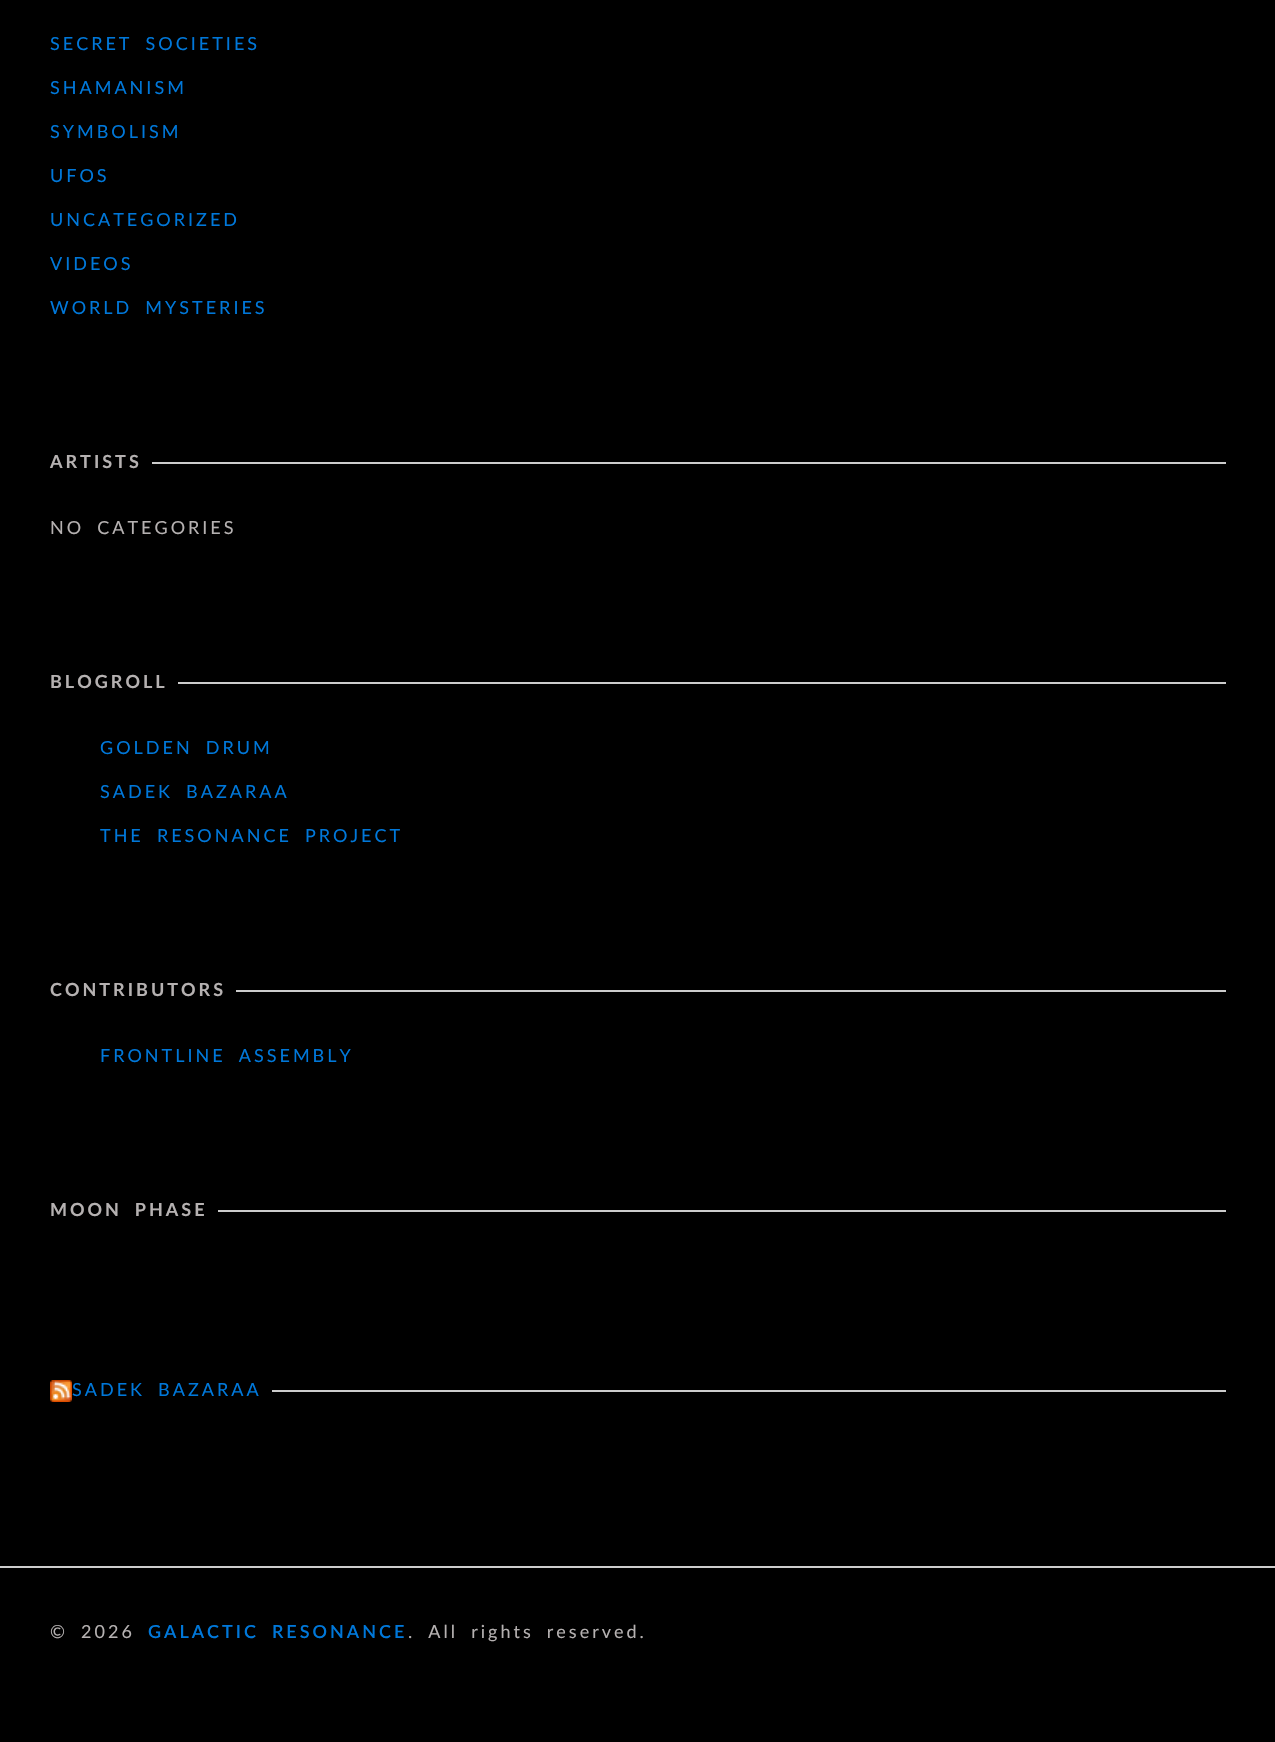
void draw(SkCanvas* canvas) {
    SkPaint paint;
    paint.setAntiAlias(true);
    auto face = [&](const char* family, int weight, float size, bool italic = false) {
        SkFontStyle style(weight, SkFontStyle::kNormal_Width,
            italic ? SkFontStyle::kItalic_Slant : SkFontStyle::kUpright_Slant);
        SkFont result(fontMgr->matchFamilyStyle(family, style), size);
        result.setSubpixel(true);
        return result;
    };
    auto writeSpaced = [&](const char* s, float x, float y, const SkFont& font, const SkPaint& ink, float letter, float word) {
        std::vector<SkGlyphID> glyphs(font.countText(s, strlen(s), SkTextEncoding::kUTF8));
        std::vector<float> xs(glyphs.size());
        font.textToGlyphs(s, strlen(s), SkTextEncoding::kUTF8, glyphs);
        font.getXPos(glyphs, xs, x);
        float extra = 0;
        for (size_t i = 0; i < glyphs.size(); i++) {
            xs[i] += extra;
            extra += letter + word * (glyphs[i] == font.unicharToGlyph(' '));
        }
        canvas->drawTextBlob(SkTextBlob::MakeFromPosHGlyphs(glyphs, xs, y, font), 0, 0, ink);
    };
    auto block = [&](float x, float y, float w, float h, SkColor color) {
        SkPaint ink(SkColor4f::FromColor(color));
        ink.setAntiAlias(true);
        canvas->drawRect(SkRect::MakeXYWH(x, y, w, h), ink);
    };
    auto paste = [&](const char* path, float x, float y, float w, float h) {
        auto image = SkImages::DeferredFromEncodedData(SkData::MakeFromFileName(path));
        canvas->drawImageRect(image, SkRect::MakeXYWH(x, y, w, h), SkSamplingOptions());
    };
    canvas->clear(SK_ColorBLACK);
    auto kFont1 = face("Lato", 400, 18);
    paint.setColor(SkColorSetRGB(0, 119, 217));
    writeSpaced("SECRET SOCIETIES", 50, 50, kFont1, paint, 3, 5.5f);
    writeSpaced("SHAMANISM", 50, 94, kFont1, paint, 3, 0);
    writeSpaced("SYMBOLISM", 50, 138, kFont1, paint, 3, 0);
    writeSpaced("UFOS", 50, 182, kFont1, paint, 3, 0);
    writeSpaced("UNCATEGORIZED", 50, 226, kFont1, paint, 3, 0);
    writeSpaced("VIDEOS", 50, 270, kFont1, paint, 3, 0);
    writeSpaced("WORLD MYSTERIES", 50, 314, kFont1, paint, 3, 5.5f);
    block(152, 462, 1074, 2, SkColorSetRGB(204, 204, 204));
    auto kFont2 = face("Lato", 700, 18);
    paint.setColor(SkColorSetRGB(181, 177, 177));
    writeSpaced("ARTISTS", 50, 468, kFont2, paint, 3, 0);
    writeSpaced("NO CATEGORIES", 50, 534, kFont1, paint, 3, 5.5f);
    block(178, 682, 1048, 2, SkColorSetRGB(204, 204, 204));
    writeSpaced("BLOGROLL", 50, 688, kFont2, paint, 3, 0);
    paint.setColor(SkColorSetRGB(0, 119, 217));
    writeSpaced("GOLDEN DRUM", 100, 754, kFont1, paint, 3, 5.5f);
    writeSpaced("SADEK BAZARAA", 100, 798, kFont1, paint, 3, 5.5f);
    writeSpaced("THE RESONANCE PROJECT", 100, 842, kFont1, paint, 3, 5.5f);
    block(236, 990, 990, 2, SkColorSetRGB(204, 204, 204));
    paint.setColor(SkColorSetRGB(181, 177, 177));
    writeSpaced("CONTRIBUTORS", 50, 996, kFont2, paint, 3, 0);
    paint.setColor(SkColorSetRGB(0, 119, 217));
    writeSpaced("FRONTLINE ASSEMBLY", 100, 1062, kFont1, paint, 3, 5.5f);
    block(218, 1210, 1008, 2, SkColorSetRGB(204, 204, 204));
    paint.setColor(SkColorSetRGB(181, 177, 177));
    writeSpaced("MOON PHASE", 50, 1216, kFont2, paint, 3, 5.5f);
    block(272, 1390, 954, 2, SkColorSetRGB(204, 204, 204));
    paste("pic1.png", 50, 1380, 22, 22);
    paint.setColor(SkColorSetRGB(0, 119, 217));
    writeSpaced("SADEK BAZARAA", 72, 1396, kFont1, paint, 3, 5.5f);
    block(0, 1566, 1275, 2, SkColorSetRGB(204, 204, 204));
    paint.setColor(SkColorSetRGB(181, 177, 177));
    writeSpaced("© 2026", 50, 1638, kFont1, paint, 3, 5.5f);
    auto kFont3 = face("Lato", 600, 18);
    paint.setColor(SkColorSetRGB(0, 119, 217));
    writeSpaced("GALACTIC RESONANCE", 148, 1638, kFont3, paint, 3, 5.5f);
    paint.setColor(SkColorSetRGB(181, 177, 177));
    writeSpaced(". All rights reserved.", 408, 1638, kFont1, paint, 3, 5.5f);
}
